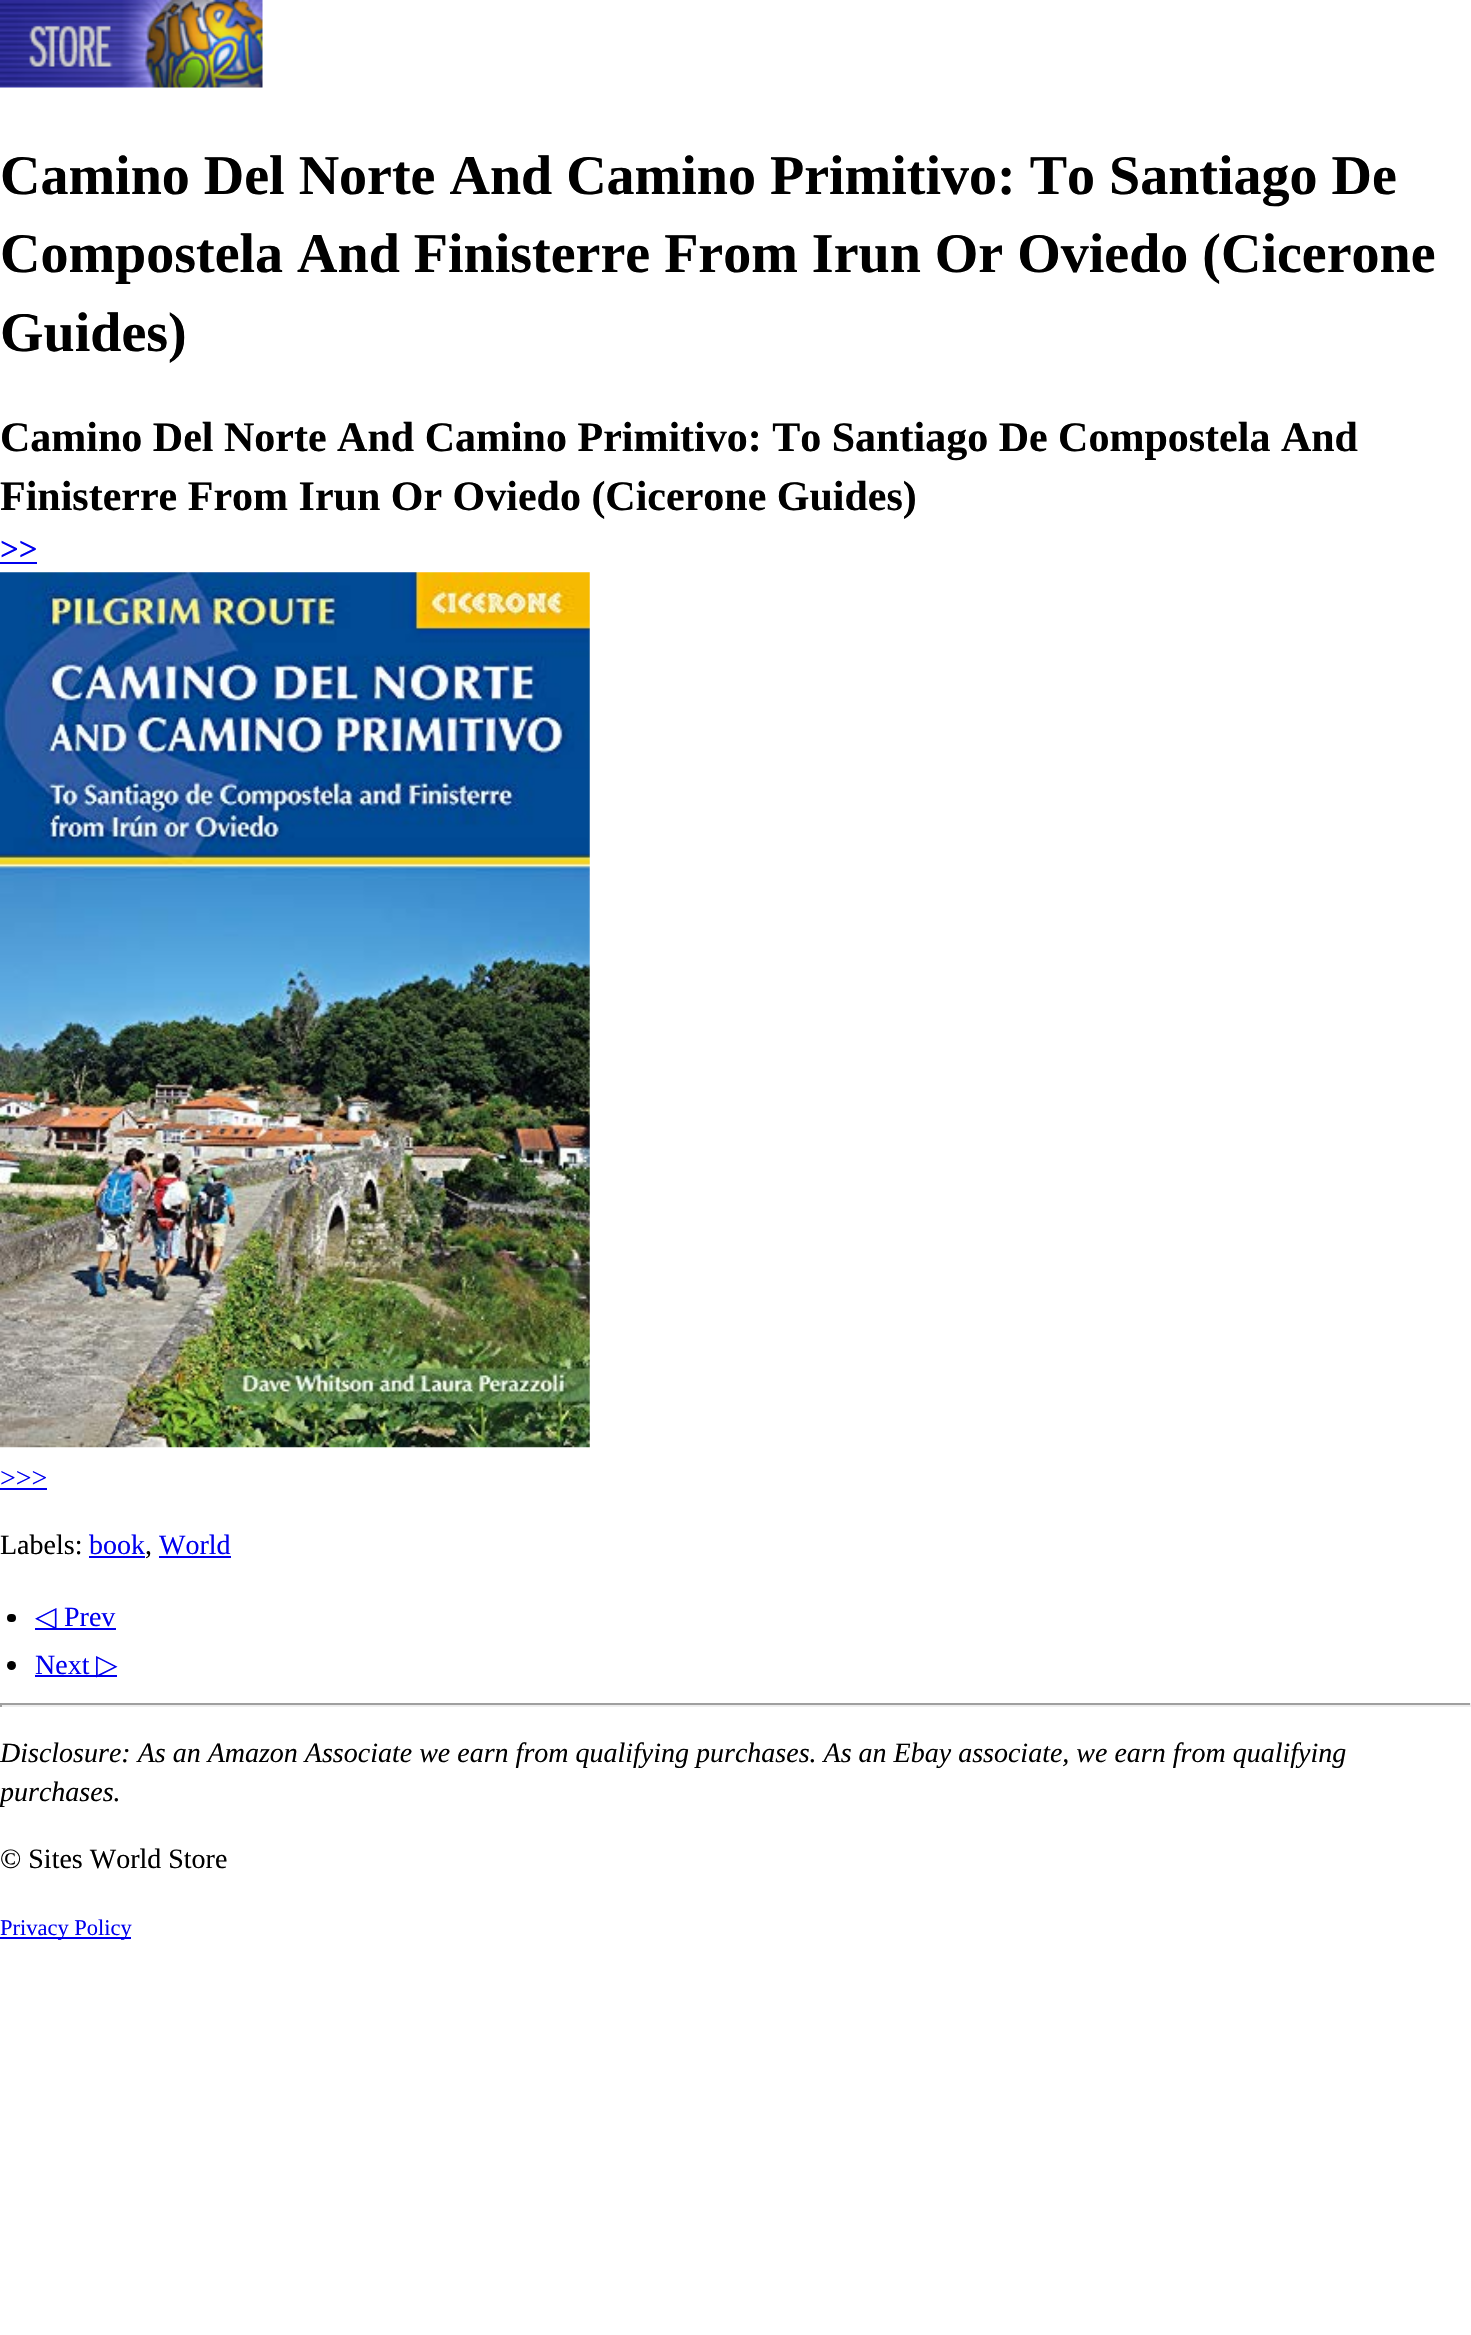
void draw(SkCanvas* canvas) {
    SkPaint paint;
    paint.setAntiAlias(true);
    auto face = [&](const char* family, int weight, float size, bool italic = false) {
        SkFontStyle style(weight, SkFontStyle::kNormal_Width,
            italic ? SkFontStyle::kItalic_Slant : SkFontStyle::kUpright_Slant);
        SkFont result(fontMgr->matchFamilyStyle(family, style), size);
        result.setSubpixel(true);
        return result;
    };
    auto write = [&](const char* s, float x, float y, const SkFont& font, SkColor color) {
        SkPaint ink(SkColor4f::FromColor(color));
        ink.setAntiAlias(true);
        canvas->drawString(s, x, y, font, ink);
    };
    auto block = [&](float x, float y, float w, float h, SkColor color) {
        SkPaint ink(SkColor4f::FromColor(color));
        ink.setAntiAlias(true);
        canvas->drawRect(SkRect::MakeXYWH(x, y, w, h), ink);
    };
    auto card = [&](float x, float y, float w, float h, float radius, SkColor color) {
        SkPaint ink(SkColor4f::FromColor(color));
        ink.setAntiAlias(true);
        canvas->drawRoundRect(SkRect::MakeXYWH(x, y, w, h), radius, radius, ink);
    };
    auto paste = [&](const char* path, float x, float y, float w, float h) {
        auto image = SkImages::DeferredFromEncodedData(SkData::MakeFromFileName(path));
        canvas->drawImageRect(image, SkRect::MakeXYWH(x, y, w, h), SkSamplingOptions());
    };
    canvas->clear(SK_ColorWHITE);
    paste("pic1.png", 0, 0, 263, 88);
    auto kFont1 = face("Liberation Serif", 700, 56);
    write("Camino Del Norte And Camino Primitivo: To Santiago De", 0, 194, kFont1, SK_ColorBLACK);
    write("Compostela And Finisterre From Irun Or Oviedo (Cicerone", 0, 272, kFont1, SK_ColorBLACK);
    write("Guides)", 0, 351, kFont1, SK_ColorBLACK);
    auto kFont2 = face("Liberation Serif", 700, 42);
    write("Camino Del Norte And Camino Primitivo: To Santiago De Compostela And", 0, 451, kFont2, SK_ColorBLACK);
    write("Finisterre From Irun Or Oviedo (Cicerone Guides)", 0, 510, kFont2, SK_ColorBLACK);
    auto kFont3 = face("Liberation Serif", 700, 33);
    write(">>", 0, 560, kFont3, SkColorSetRGB(0, 0, 238));
    block(0, 562, 37, 2, SkColorSetRGB(0, 0, 238));
    paste("pic2.png", 0, 572, 590, 876);
    auto kFont4 = face("Liberation Serif", 400, 28);
    write(">>>", 0, 1487, kFont4, SkColorSetRGB(0, 0, 238));
    block(0, 1488, 47, 2, SkColorSetRGB(0, 0, 238));
    write("Labels:", 0, 1554, kFont4, SK_ColorBLACK);
    write("book", 89, 1554, kFont4, SkColorSetRGB(0, 0, 238));
    block(89, 1556, 56, 2, SkColorSetRGB(0, 0, 238));
    write(",", 145, 1554, kFont4, SK_ColorBLACK);
    write("World", 159, 1554, kFont4, SkColorSetRGB(0, 0, 238));
    block(159, 1556, 72, 2, SkColorSetRGB(0, 0, 238));
    card(7, 1614, 9, 8, 4, SK_ColorBLACK);
    block(35, 1628, 81, 2, SkColorSetRGB(0, 0, 238));
    auto kFont5 = face("DejaVu Sans", 400, 28);
    write("◁", 35, 1626, kFont5, SkColorSetRGB(0, 0, 238));
    write("Prev", 64, 1626, kFont4, SkColorSetRGB(0, 0, 238));
    paint.setColor(SK_ColorBLACK);
    canvas->drawCircle(11.5f, 1665.5f, 4.5f, paint);
    write("Next", 35, 1674, kFont4, SkColorSetRGB(0, 0, 238));
    block(35, 1675, 82, 2, SkColorSetRGB(0, 0, 238));
    write("▷", 96, 1674, kFont5, SkColorSetRGB(0, 0, 238));
    block(0, 1703, 1471, 2, SkColorSetRGB(159, 159, 159));
    block(1470, 1703, 1, 4, SkColorSetRGB(238, 238, 238));
    block(0, 1705, 1471, 2, SkColorSetRGB(238, 238, 238));
    block(0, 1703, 2, 4, SkColorSetRGB(159, 159, 159));
    auto kFont6 = face("Liberation Serif", 400, 28, true);
    write("Disclosure: As an Amazon Associate we earn from qualifying purchases. As an Ebay associate, we earn from qualifying", 0, 1762, kFont6, SK_ColorBLACK);
    write("purchases.", 0, 1801, kFont6, SK_ColorBLACK);
    write("© Sites World Store", 0, 1868, kFont4, SK_ColorBLACK);
    block(0, 1937, 131, 2, SkColorSetRGB(0, 0, 238));
    auto kFont7 = face("Liberation Serif", 400, 22.5f);
    write("Privacy Policy", 0, 1935, kFont7, SkColorSetRGB(0, 0, 238));
}
